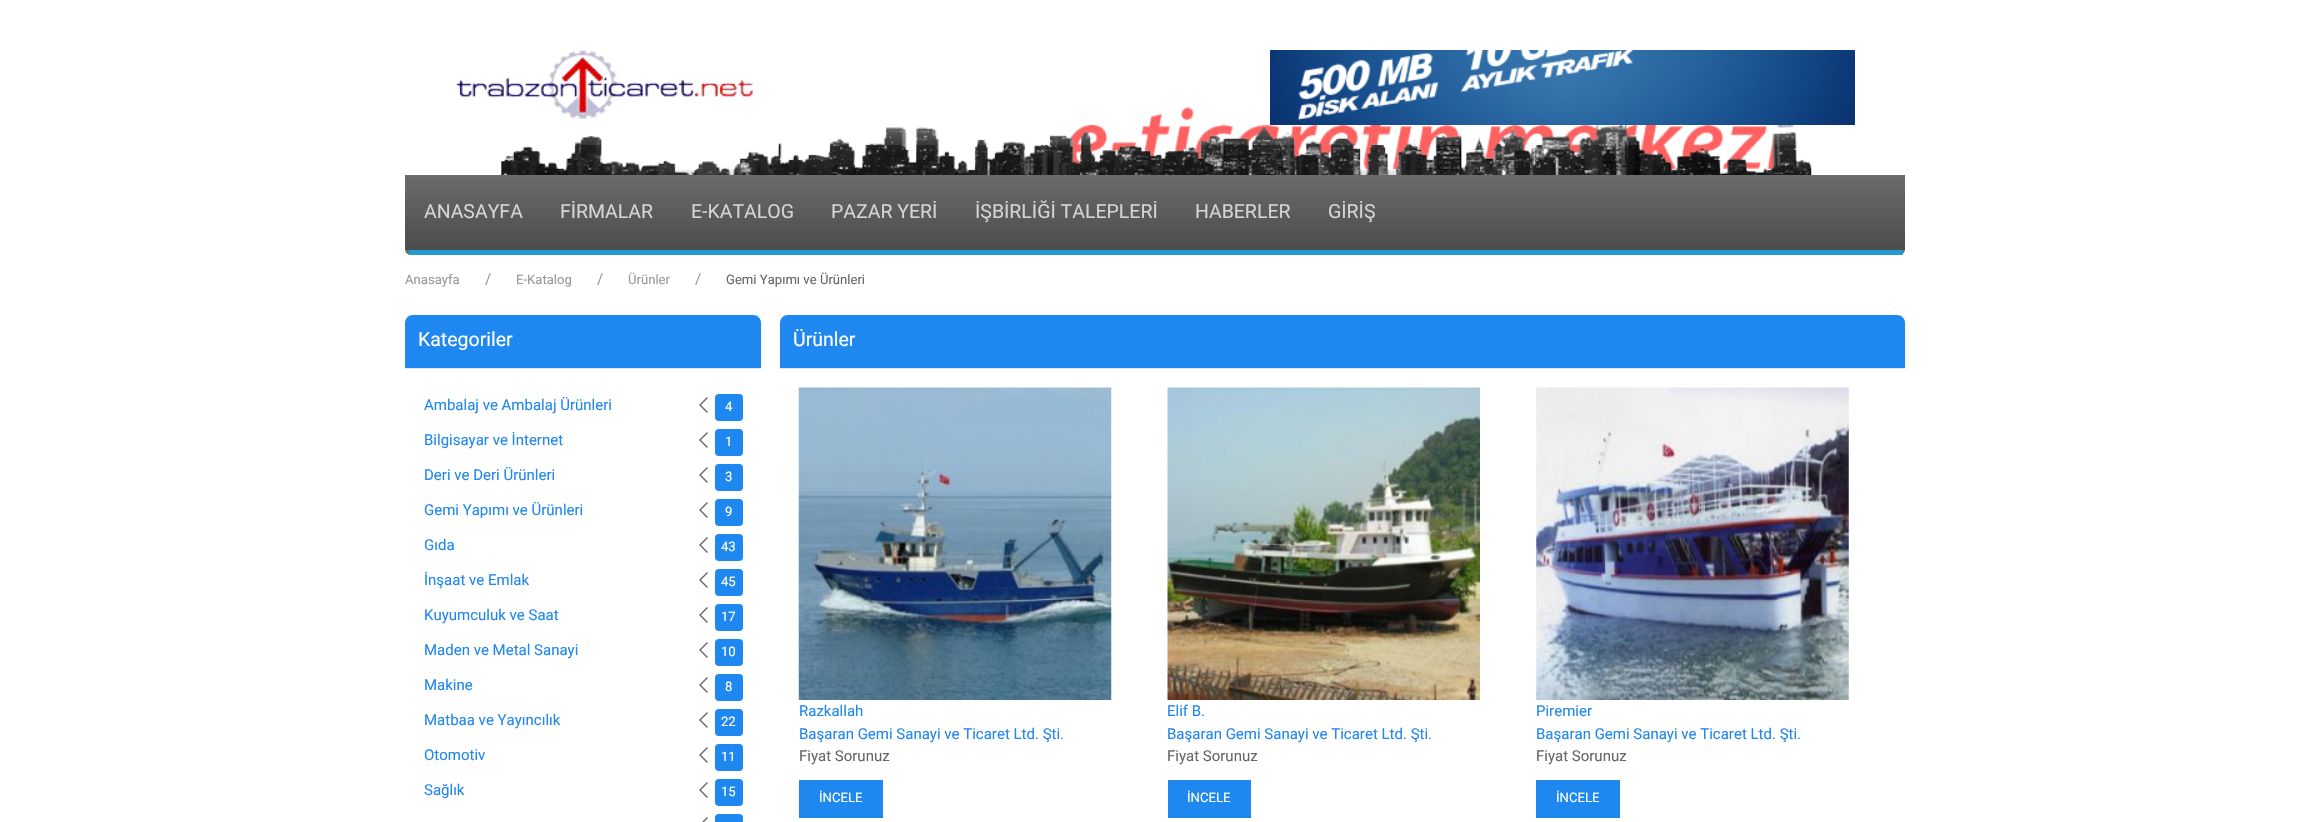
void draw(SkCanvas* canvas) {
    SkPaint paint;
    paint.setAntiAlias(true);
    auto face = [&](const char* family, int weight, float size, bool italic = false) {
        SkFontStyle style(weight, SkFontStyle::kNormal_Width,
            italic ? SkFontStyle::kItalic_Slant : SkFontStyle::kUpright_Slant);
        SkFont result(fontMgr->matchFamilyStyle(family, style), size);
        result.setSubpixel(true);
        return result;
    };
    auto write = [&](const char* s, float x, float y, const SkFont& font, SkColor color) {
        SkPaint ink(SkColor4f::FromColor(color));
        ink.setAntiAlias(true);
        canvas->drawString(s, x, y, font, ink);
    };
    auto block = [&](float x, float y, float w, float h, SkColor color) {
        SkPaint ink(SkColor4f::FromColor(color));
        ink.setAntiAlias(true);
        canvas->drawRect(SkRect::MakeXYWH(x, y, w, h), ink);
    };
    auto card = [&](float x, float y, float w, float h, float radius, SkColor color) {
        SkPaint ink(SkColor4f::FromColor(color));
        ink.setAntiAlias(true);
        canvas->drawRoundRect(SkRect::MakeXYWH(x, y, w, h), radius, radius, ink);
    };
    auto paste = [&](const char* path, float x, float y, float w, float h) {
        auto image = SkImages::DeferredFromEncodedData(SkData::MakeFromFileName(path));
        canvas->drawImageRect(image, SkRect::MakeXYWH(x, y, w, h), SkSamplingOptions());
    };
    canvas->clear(SK_ColorWHITE);
    paste("pic1.png", 501, 107, 1311, 68);
    paste("pic2.png", 456, 50, 297, 70);
    paste("pic3.png", 1270, 50, 585, 75);
    {
        const SkColor colors[] = {SkColorSetRGB(107, 107, 107), SkColorSetRGB(76, 76, 76)};
        const float stops[] = {0, 1};
        const SkPoint ends[] = {{1155, 175}, {1155, 250}};
        paint.setShader(SkGradientShader::MakeLinear(ends, colors, stops, 2, SkTileMode::kClamp));
        paint.setAlpha(255);
    }
    canvas->drawRect(SkRect::MakeXYWH(405, 175, 1500, 75), paint);
    canvas->save();
    canvas->clipPath(SkPathBuilder().moveTo(405, 175).lineTo(1905, 175).lineTo(1905, 249).cubicTo(1905, 252.5f, 1902.5f, 255, 1899, 255).lineTo(411, 255).cubicTo(407.5f, 255, 405, 252.5f, 405, 249).close().detach(), true);
    {
        const SkColor colors[] = {SkColorSetRGB(107, 107, 107), SkColorSetRGB(76, 76, 76)};
        const float stops[] = {0, 1};
        const SkPoint ends[] = {{1155, 250}, {1155, 325}};
        paint.setShader(SkGradientShader::MakeLinear(ends, colors, stops, 2, SkTileMode::kClamp));
        paint.setAlpha(255);
    }
    canvas->drawRect(SkRect::MakeXYWH(405, 250, 1500, 5), paint);
    canvas->restore();
    block(409, 250, 1494, 5, SkColorSetRGB(36, 155, 205));
    auto kFont1 = face("Roboto", 400, 19.5f);
    write("ANASAYFA", 424, 218, kFont1, SkColorSetRGB(212, 212, 212));
    write("FİRMALAR", 560, 218, kFont1, SkColorSetRGB(212, 212, 212));
    write("E-KATALOG", 691, 218, kFont1, SkColorSetRGB(212, 212, 212));
    write("PAZAR YERİ", 831, 218, kFont1, SkColorSetRGB(212, 212, 212));
    write("İŞBİRLİĞİ TALEPLERİ", 975, 218, kFont1, SkColorSetRGB(212, 212, 212));
    write("HABERLER", 1195, 218, kFont1, SkColorSetRGB(212, 212, 212));
    write("GİRİŞ", 1328, 218, kFont1, SkColorSetRGB(212, 212, 212));
    auto kFont2 = face("Roboto", 400, 13.1f);
    write("Anasayfa", 405, 284, kFont2, SkColorSetRGB(153, 153, 153));
    auto kFont3 = face("Roboto", 400, 15);
    write("/", 485, 284, kFont3, SkColorSetRGB(153, 153, 153));
    write("E-Katalog", 516, 284, kFont2, SkColorSetRGB(153, 153, 153));
    write("/", 597, 284, kFont3, SkColorSetRGB(153, 153, 153));
    write("Ürünler", 628, 284, kFont2, SkColorSetRGB(153, 153, 153));
    write("/", 695, 284, kFont3, SkColorSetRGB(153, 153, 153));
    write("Gemi Yapımı ve Ürünleri", 726, 284, kFont2, SkColorSetRGB(102, 102, 102));
    paint.setShader(nullptr);
    paint.setColor(SkColorSetRGB(30, 135, 240));
    canvas->drawPath(SkPathBuilder().moveTo(413, 315).lineTo(753, 315).cubicTo(757.5f, 315, 761, 318.5f, 761, 323).lineTo(761, 369).lineTo(405, 369).lineTo(405, 323).cubicTo(405, 318.5f, 408.5f, 315, 413, 315).close().detach(), paint);
    block(405, 368, 356, 1, SkColorSetRGB(229, 229, 229));
    write("Kategoriler", 418, 346, kFont1, SK_ColorWHITE);
    write("Ambalaj ve Ambalaj Ürünleri", 424, 410, kFont3, SkColorSetRGB(30, 135, 240));
    paint.setStyle(SkPaint::kStroke_Style);
    paint.setStrokeWidth(1.4f);
    paint.setColor(SkColorSetRGB(102, 102, 102));
    canvas->drawPath(SkPathBuilder().moveTo(707.5f, 397.5f).lineTo(700, 405).lineTo(707.5f, 412.5f).detach(), paint);
    card(715, 394, 28, 27, 4, SkColorSetRGB(30, 135, 240));
    write("4", 725, 411, kFont2, SK_ColorWHITE);
    write("Bilgisayar ve İnternet", 424, 445, kFont3, SkColorSetRGB(30, 135, 240));
    canvas->drawPath(SkPathBuilder().moveTo(707.5f, 432.5f).lineTo(700, 440).lineTo(707.5f, 447.5f).detach(), paint);
    card(715, 429, 28, 27, 4, SkColorSetRGB(30, 135, 240));
    write("1", 725, 446, kFont2, SK_ColorWHITE);
    write("Deri ve Deri Ürünleri", 424, 480, kFont3, SkColorSetRGB(30, 135, 240));
    canvas->drawPath(SkPathBuilder().moveTo(707.5f, 467.5f).lineTo(700, 475).lineTo(707.5f, 482.5f).detach(), paint);
    card(715, 464, 28, 27, 4, SkColorSetRGB(30, 135, 240));
    write("3", 725, 481, kFont2, SK_ColorWHITE);
    write("Gemi Yapımı ve Ürünleri", 424, 515, kFont3, SkColorSetRGB(30, 135, 240));
    canvas->drawPath(SkPathBuilder().moveTo(707.5f, 502.5f).lineTo(700, 510).lineTo(707.5f, 517.5f).detach(), paint);
    card(715, 499, 28, 27, 4, SkColorSetRGB(30, 135, 240));
    write("9", 725, 516, kFont2, SK_ColorWHITE);
    write("Gıda", 424, 550, kFont3, SkColorSetRGB(30, 135, 240));
    canvas->drawPath(SkPathBuilder().moveTo(707.5f, 537.5f).lineTo(700, 545).lineTo(707.5f, 552.5f).detach(), paint);
    card(715, 534, 28, 27, 4, SkColorSetRGB(30, 135, 240));
    write("43", 721, 551, kFont2, SK_ColorWHITE);
    write("İnşaat ve Emlak", 424, 585, kFont3, SkColorSetRGB(30, 135, 240));
    canvas->drawPath(SkPathBuilder().moveTo(707.5f, 572.5f).lineTo(700, 580).lineTo(707.5f, 587.5f).detach(), paint);
    card(715, 569, 28, 27, 4, SkColorSetRGB(30, 135, 240));
    write("45", 721, 586, kFont2, SK_ColorWHITE);
    write("Kuyumculuk ve Saat", 424, 620, kFont3, SkColorSetRGB(30, 135, 240));
    canvas->drawPath(SkPathBuilder().moveTo(707.5f, 607.5f).lineTo(700, 615).lineTo(707.5f, 622.5f).detach(), paint);
    card(715, 604, 28, 27, 4, SkColorSetRGB(30, 135, 240));
    write("17", 721, 621, kFont2, SK_ColorWHITE);
    write("Maden ve Metal Sanayi", 424, 655, kFont3, SkColorSetRGB(30, 135, 240));
    canvas->drawPath(SkPathBuilder().moveTo(707.5f, 642.5f).lineTo(700, 650).lineTo(707.5f, 657.5f).detach(), paint);
    card(715, 639, 28, 27, 4, SkColorSetRGB(30, 135, 240));
    write("10", 721, 656, kFont2, SK_ColorWHITE);
    write("Makine", 424, 690, kFont3, SkColorSetRGB(30, 135, 240));
    canvas->drawPath(SkPathBuilder().moveTo(707.5f, 677.5f).lineTo(700, 685).lineTo(707.5f, 692.5f).detach(), paint);
    card(715, 674, 28, 27, 4, SkColorSetRGB(30, 135, 240));
    write("8", 725, 691, kFont2, SK_ColorWHITE);
    write("Matbaa ve Yayıncılık", 424, 725, kFont3, SkColorSetRGB(30, 135, 240));
    canvas->drawPath(SkPathBuilder().moveTo(707.5f, 712.5f).lineTo(700, 720).lineTo(707.5f, 727.5f).detach(), paint);
    card(715, 709, 28, 27, 4, SkColorSetRGB(30, 135, 240));
    write("22", 721, 726, kFont2, SK_ColorWHITE);
    write("Otomotiv", 424, 760, kFont3, SkColorSetRGB(30, 135, 240));
    canvas->drawPath(SkPathBuilder().moveTo(707.5f, 747.5f).lineTo(700, 755).lineTo(707.5f, 762.5f).detach(), paint);
    card(715, 744, 28, 27, 4, SkColorSetRGB(30, 135, 240));
    write("11", 721, 761, kFont2, SK_ColorWHITE);
    write("Sağlık", 424, 795, kFont3, SkColorSetRGB(30, 135, 240));
    canvas->drawPath(SkPathBuilder().moveTo(707.5f, 782.5f).lineTo(700, 790).lineTo(707.5f, 797.5f).detach(), paint);
    card(715, 779, 28, 27, 4, SkColorSetRGB(30, 135, 240));
    write("15", 721, 796, kFont2, SK_ColorWHITE);
    canvas->drawPath(SkPathBuilder().moveTo(707.5f, 817.5f).lineTo(700, 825).lineTo(707.5f, 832.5f).detach(), paint);
    card(715, 814, 28, 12, 4, SkColorSetRGB(30, 135, 240));
    paint.setStyle(SkPaint::kFill_Style);
    paint.setColor(SkColorSetRGB(30, 135, 240));
    canvas->drawPath(SkPathBuilder().moveTo(788, 315).lineTo(1897, 315).cubicTo(1901.5f, 315, 1905, 318.5f, 1905, 323).lineTo(1905, 369).lineTo(780, 369).lineTo(780, 323).cubicTo(780, 318.5f, 783.5f, 315, 788, 315).close().detach(), paint);
    block(780, 368, 1125, 1, SkColorSetRGB(229, 229, 229));
    write("Ürünler", 793, 346, kFont1, SK_ColorWHITE);
    paste("pic4.png", 798, 387, 314, 313);
    write("Razkallah", 799, 716, kFont3, SkColorSetRGB(30, 135, 240));
    write("Başaran Gemi Sanayi ve Ticaret Ltd. Şti.", 799, 739, kFont3, SkColorSetRGB(30, 135, 240));
    write("Fiyat Sorunuz", 799, 761, kFont3, SkColorSetRGB(102, 102, 102));
    block(799, 780, 84, 38, SkColorSetRGB(30, 135, 240));
    write("İNCELE", 819, 802, kFont2, SK_ColorWHITE);
    paste("pic5.png", 1167, 387, 313, 313);
    write("Elif B.", 1167, 716, kFont3, SkColorSetRGB(30, 135, 240));
    write("Başaran Gemi Sanayi ve Ticaret Ltd. Şti.", 1167, 739, kFont3, SkColorSetRGB(30, 135, 240));
    write("Fiyat Sorunuz", 1167, 761, kFont3, SkColorSetRGB(102, 102, 102));
    block(1168, 780, 83, 38, SkColorSetRGB(30, 135, 240));
    write("İNCELE", 1187, 802, kFont2, SK_ColorWHITE);
    paste("pic6.png", 1536, 387, 313, 313);
    write("Piremier", 1536, 716, kFont3, SkColorSetRGB(30, 135, 240));
    write("Başaran Gemi Sanayi ve Ticaret Ltd. Şti.", 1536, 739, kFont3, SkColorSetRGB(30, 135, 240));
    write("Fiyat Sorunuz", 1536, 761, kFont3, SkColorSetRGB(102, 102, 102));
    block(1536, 780, 84, 38, SkColorSetRGB(30, 135, 240));
    write("İNCELE", 1556, 802, kFont2, SK_ColorWHITE);
}
